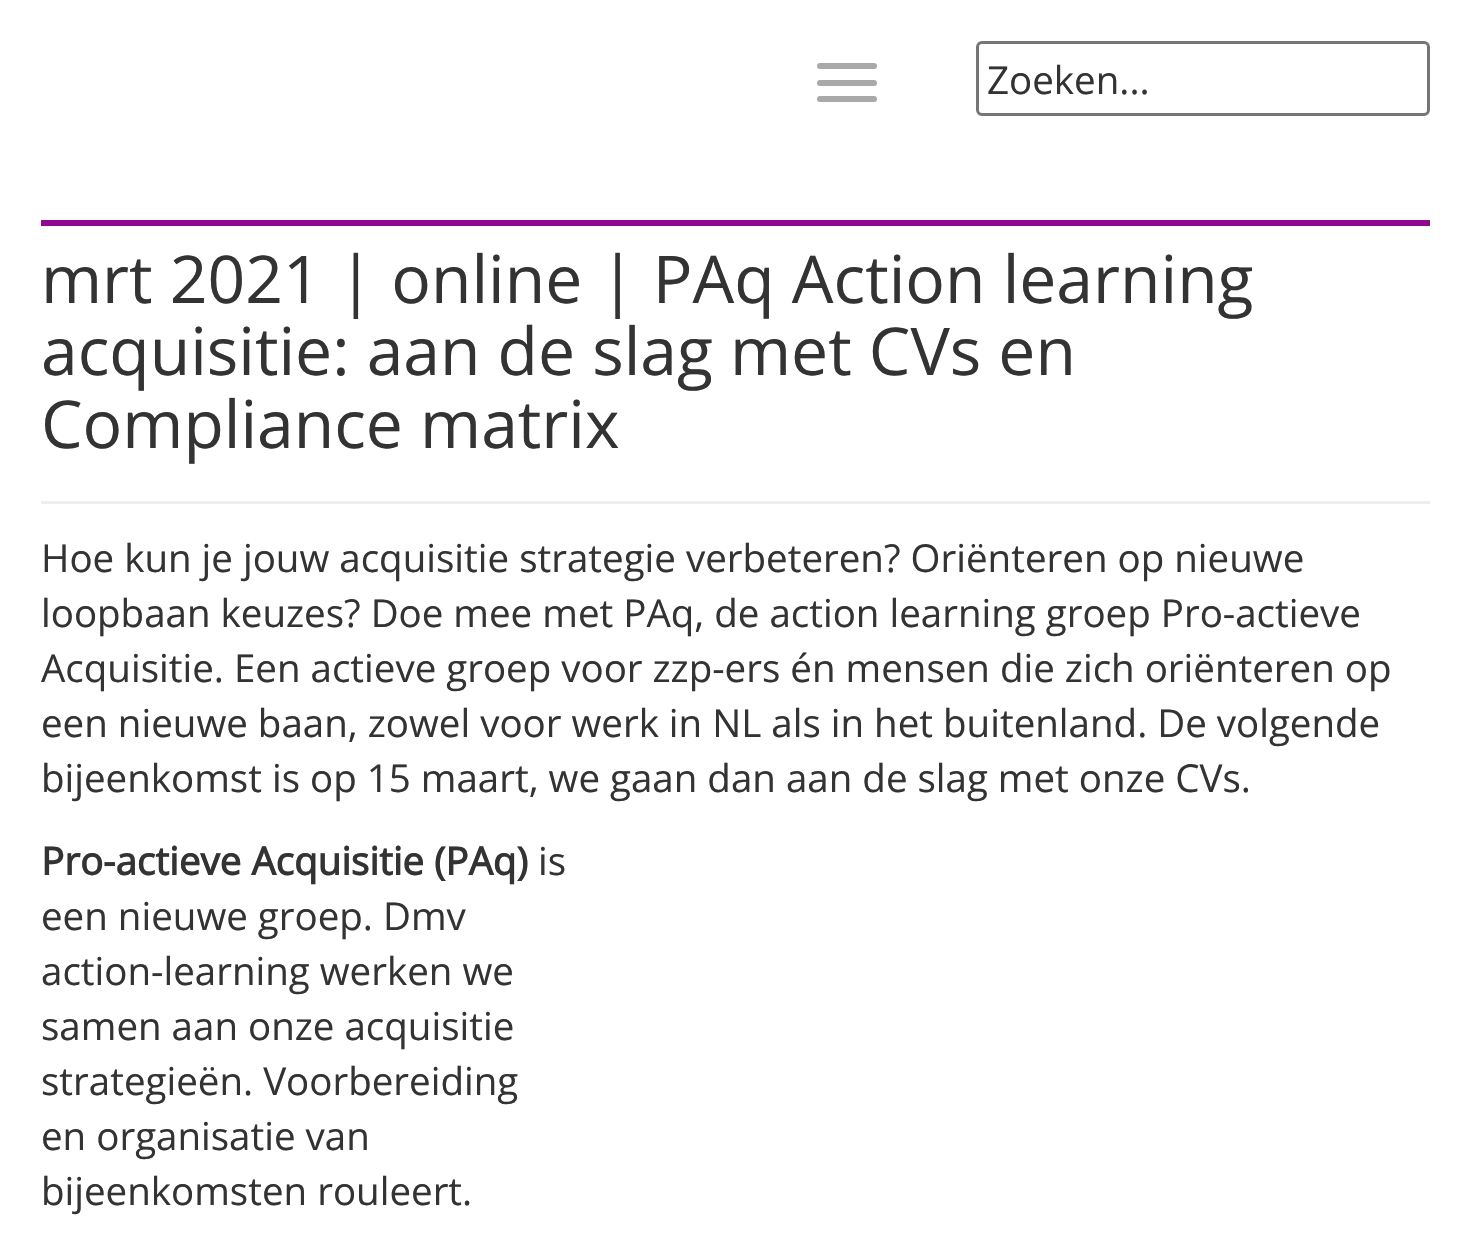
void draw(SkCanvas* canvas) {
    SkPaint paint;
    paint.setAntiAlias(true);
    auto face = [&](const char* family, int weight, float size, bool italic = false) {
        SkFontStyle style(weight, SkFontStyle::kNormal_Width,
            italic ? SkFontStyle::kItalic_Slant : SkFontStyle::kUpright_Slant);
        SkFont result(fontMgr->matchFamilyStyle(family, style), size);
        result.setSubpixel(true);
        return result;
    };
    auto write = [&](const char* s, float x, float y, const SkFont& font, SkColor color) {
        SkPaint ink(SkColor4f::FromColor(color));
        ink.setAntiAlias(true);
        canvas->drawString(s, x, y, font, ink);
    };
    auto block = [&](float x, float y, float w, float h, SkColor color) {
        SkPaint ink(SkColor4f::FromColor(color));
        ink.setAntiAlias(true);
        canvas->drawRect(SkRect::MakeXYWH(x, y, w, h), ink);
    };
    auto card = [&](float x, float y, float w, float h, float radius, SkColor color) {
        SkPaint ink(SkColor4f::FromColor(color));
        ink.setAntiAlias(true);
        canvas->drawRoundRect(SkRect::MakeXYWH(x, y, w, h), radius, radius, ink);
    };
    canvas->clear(SK_ColorWHITE);
    card(817, 63, 60, 6, 3, SkColorSetRGB(169, 169, 169));
    card(817, 80, 60, 6, 3, SkColorSetRGB(169, 169, 169));
    card(817, 96, 60, 6, 3, SkColorSetRGB(169, 169, 169));
    paint.setStyle(SkPaint::kStroke_Style);
    paint.setStrokeWidth(3);
    paint.setColor(SkColorSetRGB(118, 118, 118));
    canvas->drawRoundRect(SkRect::MakeXYWH(977.5f, 42.5f, 451, 72), 4.5f, 4.5f, paint);
    auto kFont1 = face("Open Sans", 400, 38.5f);
    write("Zoeken...", 987, 94, kFont1, SkColorSetRGB(51, 51, 51));
    block(41, 220, 1389, 6, SkColorSetRGB(144, 8, 144));
    block(41, 501, 1389, 3, SkColorSetRGB(238, 238, 238));
    auto kFont2 = face("Open Sans", 400, 66);
    write("mrt 2021 | online | PAq Action learning", 41, 303, kFont2, SkColorSetRGB(51, 51, 51));
    write("acquisitie: aan de slag met CVs en", 41, 375, kFont2, SkColorSetRGB(51, 51, 51));
    write("Compliance matrix", 41, 448, kFont2, SkColorSetRGB(51, 51, 51));
    write("Hoe kun je jouw acquisitie strategie verbeteren? Oriënteren op nieuwe", 41, 572, kFont1, SkColorSetRGB(51, 51, 51));
    write("loopbaan keuzes? Doe mee met PAq, de action learning groep Pro-actieve", 41, 627, kFont1, SkColorSetRGB(51, 51, 51));
    write("Acquisitie. Een actieve groep voor zzp-ers én mensen die zich oriënteren op", 41, 682, kFont1, SkColorSetRGB(51, 51, 51));
    write("een nieuwe baan, zowel voor werk in NL als in het buitenland. De volgende", 41, 737, kFont1, SkColorSetRGB(51, 51, 51));
    write("bijeenkomst is op 15 maart, we gaan dan aan de slag met onze CVs.", 41, 792, kFont1, SkColorSetRGB(51, 51, 51));
    auto kFont3 = face("Open Sans", 700, 38.5f);
    write("Pro-actieve Acquisitie (PAq)", 41, 875, kFont3, SkColorSetRGB(51, 51, 51));
    write("is", 538, 875, kFont1, SkColorSetRGB(51, 51, 51));
    write("een nieuwe groep. Dmv", 41, 930, kFont1, SkColorSetRGB(51, 51, 51));
    write("action-learning werken we", 41, 985, kFont1, SkColorSetRGB(51, 51, 51));
    write("samen aan onze acquisitie", 41, 1040, kFont1, SkColorSetRGB(51, 51, 51));
    write("strategieën. Voorbereiding", 41, 1095, kFont1, SkColorSetRGB(51, 51, 51));
    write("en organisatie van", 41, 1150, kFont1, SkColorSetRGB(51, 51, 51));
    write("bijeenkomsten rouleert.", 41, 1205, kFont1, SkColorSetRGB(51, 51, 51));
}
